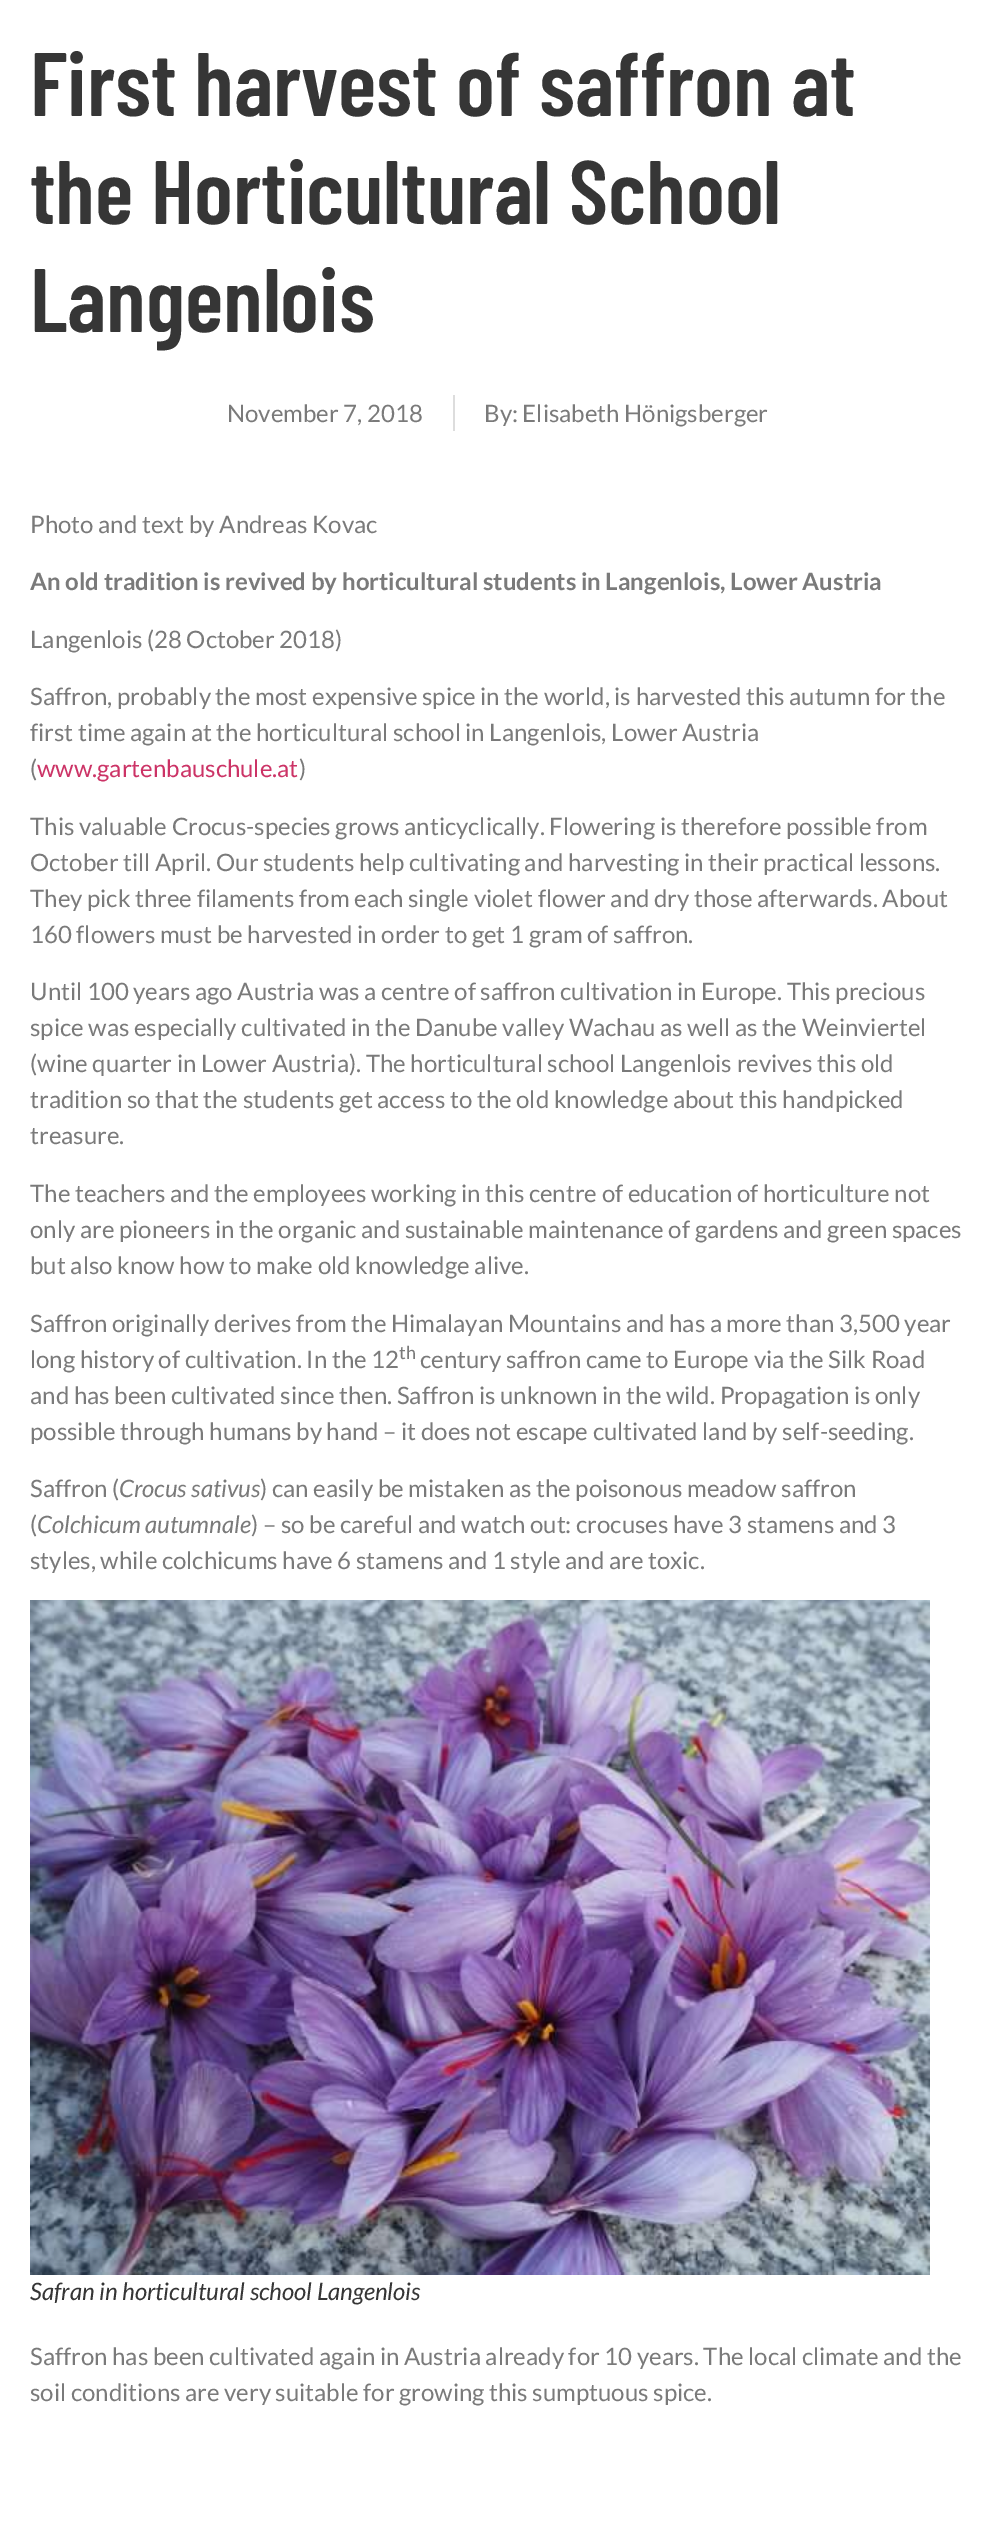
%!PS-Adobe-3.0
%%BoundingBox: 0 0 994 2536
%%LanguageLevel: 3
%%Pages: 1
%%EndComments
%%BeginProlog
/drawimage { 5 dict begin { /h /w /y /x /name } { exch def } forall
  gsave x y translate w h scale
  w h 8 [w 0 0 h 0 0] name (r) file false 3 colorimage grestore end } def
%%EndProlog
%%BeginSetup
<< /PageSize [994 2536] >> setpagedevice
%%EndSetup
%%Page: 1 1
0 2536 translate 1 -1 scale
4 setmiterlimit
1 setgray
0 0 994 2536 rectfill
0.867 setgray
453 395 2 36 rectfill
(images/1.raw) 30 1600 900 675 drawimage
/BarlowCondensed-SemiBold [90 0 0 -90 0 0] selectfont
0.212 setgray
30 116 moveto (First harvest of saffron at) show
30 224 moveto (the Horticultural School) show
30 332 moveto (Langenlois) show
/Lato-Regular [24 0 0 -24 0 0] selectfont
0.478 setgray
227 422 moveto (November 7, 2018) show
484 422 moveto (By: Elisabeth Hönigsberger) show
30 533 moveto (Photo and text by Andreas Kovac) show
/Lato-Bold [24 0 0 -24 0 0] selectfont
30 590 moveto (An old tradition is revived by horticultural students in Langenlois, Lower Austria) show
/Lato-Regular [24 0 0 -24 0 0] selectfont
30 648 moveto (Langenlois \(28 October 2018\)) show
30 705 moveto (Saffron, probably the most expensive spice in the world, is harvested this autumn for the) show
30 741 moveto (first time again at the horticultural school in Langenlois, Lower Austria) show
30 777 moveto (\() show
0.8 0.2 0.4 setrgbcolor
37 777 moveto (www.gartenbauschule.at) show
0.478 setgray
299 777 moveto (\)) show
30 835 moveto (This valuable Crocus-species grows anticyclically. Flowering is therefore possible from) show
30 871 moveto (October till April. Our students help cultivating and harvesting in their practical lessons.) show
30 907 moveto (They pick three filaments from each single violet flower and dry those afterwards. About) show
30 943 moveto (160 flowers must be harvested in order to get 1 gram of saffron.) show
30 1000 moveto (Until 100 years ago Austria was a centre of saffron cultivation in Europe. This precious) show
30 1036 moveto (spice was especially cultivated in the Danube valley Wachau as well as the Weinviertel) show
30 1072 moveto (\(wine quarter in Lower Austria\). The horticultural school Langenlois revives this old) show
30 1108 moveto (tradition so that the students get access to the old knowledge about this handpicked) show
30 1144 moveto (treasure.) show
30 1202 moveto (The teachers and the employees working in this centre of education of horticulture not) show
30 1238 moveto (only are pioneers in the organic and sustainable maintenance of gardens and green spaces) show
30 1274 moveto (but also know how to make old knowledge alive.) show
30 1332 moveto (Saffron originally derives from the Himalayan Mountains and has a more than 3,500 year) show
30 1368 moveto (long history of cultivation. In the 12) show
/Lato-Regular [18 0 0 -18 0 0] selectfont
399 1359 moveto (th) show
/Lato-Regular [24 0 0 -24 0 0] selectfont
420 1368 moveto (century saffron came to Europe via the Silk Road) show
30 1404 moveto (and has been cultivated since then. Saffron is unknown in the wild. Propagation is only) show
30 1440 moveto (possible through humans by hand – it does not escape cultivated land by self-seeding.) show
30 1497 moveto (Saffron \() show
/Lato-Italic [24 0 0 -24 0 0] selectfont
119 1497 moveto (Crocus sativus) show
/Lato-Regular [24 0 0 -24 0 0] selectfont
260 1497 moveto (\) can easily be mistaken as the poisonous meadow saffron) show
30 1533 moveto (\() show
/Lato-Italic [24 0 0 -24 0 0] selectfont
37 1533 moveto (Colchicum autumnale) show
/Lato-Regular [24 0 0 -24 0 0] selectfont
251 1533 moveto (\) – so be careful and watch out: crocuses have 3 stamens and 3) show
30 1569 moveto (styles, while colchicums have 6 stamens and 1 style and are toxic.) show
/Lato-Italic [24 0 0 -24 0 0] selectfont
0.212 setgray
30 2300 moveto (Safran in horticultural school Langenlois) show
/Lato-Regular [24 0 0 -24 0 0] selectfont
0.478 setgray
30 2365 moveto (Saffron has been cultivated again in Austria already for 10 years. The local climate and the) show
30 2401 moveto (soil conditions are very suitable for growing this sumptuous spice.) show
showpage
%%EOF
